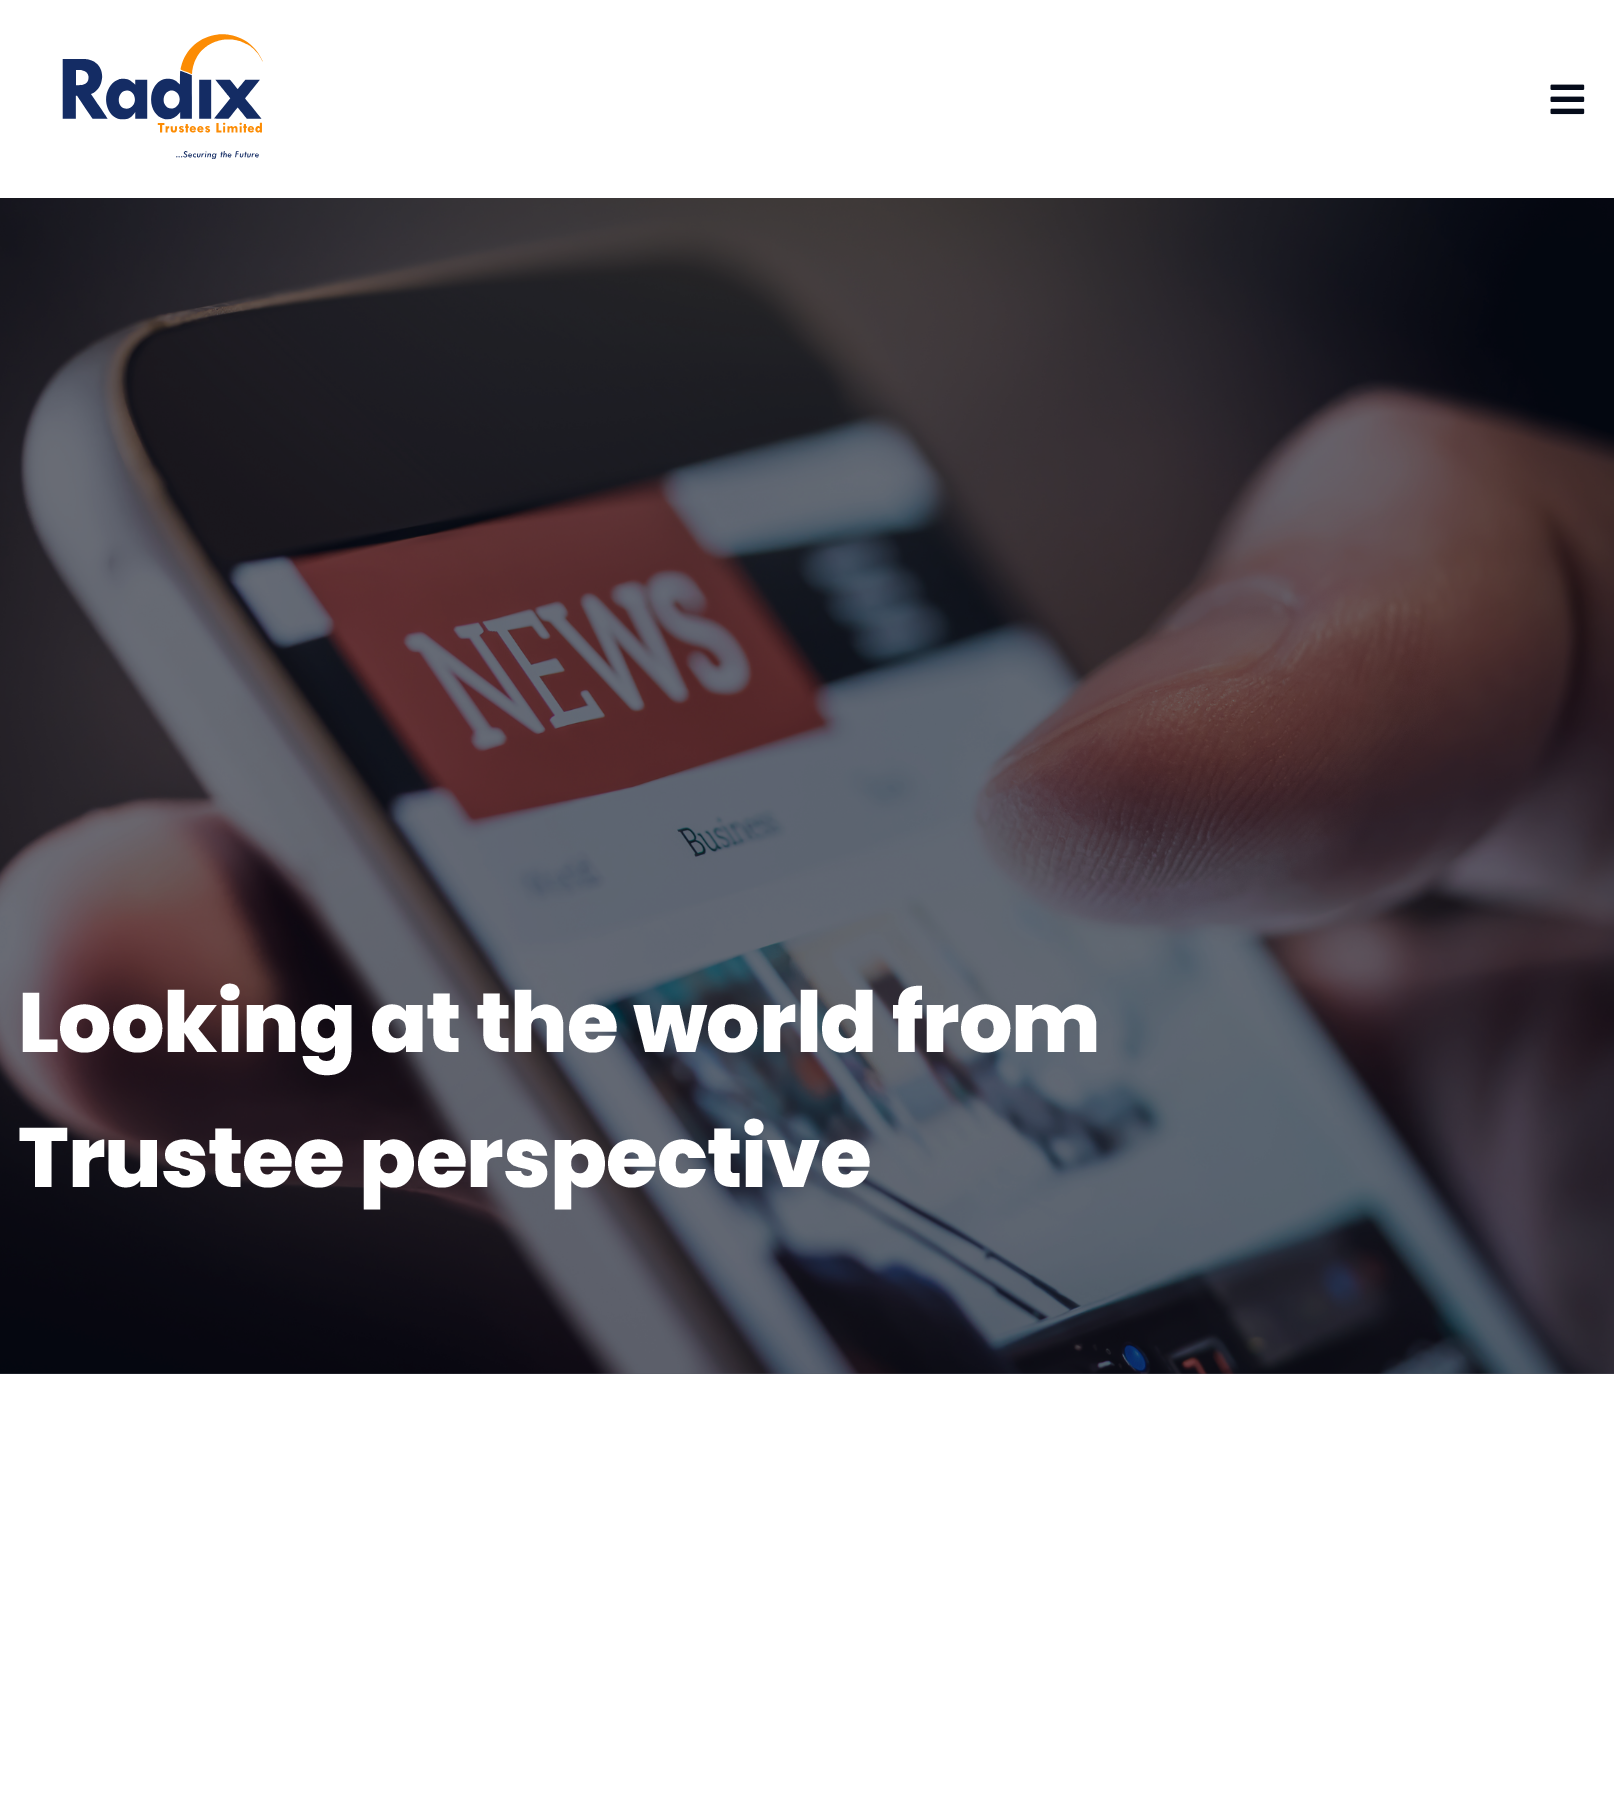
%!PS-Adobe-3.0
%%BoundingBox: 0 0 1614 1812
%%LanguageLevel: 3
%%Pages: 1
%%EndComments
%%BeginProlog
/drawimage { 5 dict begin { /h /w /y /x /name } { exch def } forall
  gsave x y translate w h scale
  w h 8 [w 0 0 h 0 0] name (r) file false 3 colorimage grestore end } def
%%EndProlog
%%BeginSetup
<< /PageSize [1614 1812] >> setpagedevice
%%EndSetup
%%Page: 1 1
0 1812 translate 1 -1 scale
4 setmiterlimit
1 setgray
0 0 1614 1812 rectfill
(images/1.raw) 62 34 201 125 drawimage
(images/2.raw) 1550 84 35 31 drawimage
(images/3.raw) 0 198 1614 1176 drawimage
/Poppins-ExtraBold [84 0 0 -84 0 0] selectfont
18 1052 moveto -0.9 0 (Looking at the world from) ashow
18 1187 moveto -0.9 0 (Trustee perspective) ashow
showpage
%%EOF
